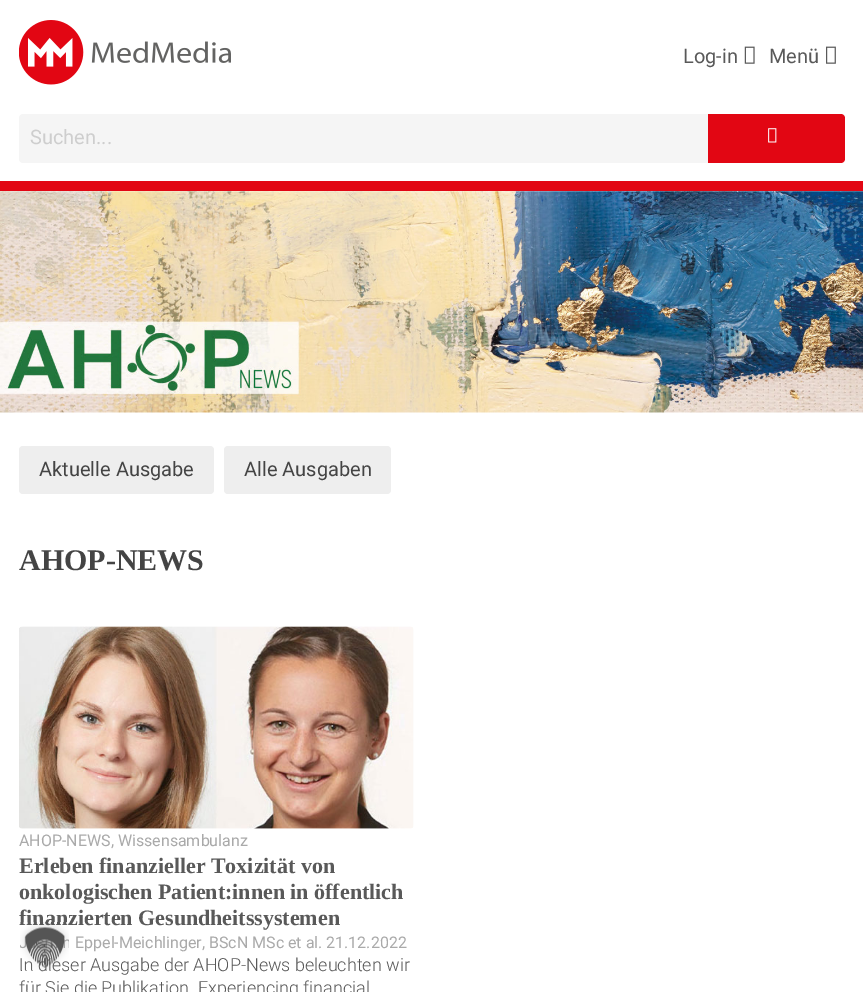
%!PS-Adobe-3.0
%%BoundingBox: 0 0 863 992
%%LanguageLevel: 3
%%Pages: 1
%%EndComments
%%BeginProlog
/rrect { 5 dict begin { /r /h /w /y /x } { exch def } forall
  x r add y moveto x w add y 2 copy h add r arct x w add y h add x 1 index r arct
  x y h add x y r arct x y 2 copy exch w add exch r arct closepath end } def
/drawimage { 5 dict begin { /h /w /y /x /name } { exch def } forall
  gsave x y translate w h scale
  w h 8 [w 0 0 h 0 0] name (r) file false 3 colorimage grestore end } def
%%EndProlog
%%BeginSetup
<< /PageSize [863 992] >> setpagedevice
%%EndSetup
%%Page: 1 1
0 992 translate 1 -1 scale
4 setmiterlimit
1 setgray
0 0 863 992 rectfill
0.886 0.024 0.075 setrgbcolor
0 181 863 10 rectfill
(images/1.raw) 19 20 212 65 drawimage
(images/2.raw) 744 46 11 18 drawimage
(images/3.raw) 826 46 10 18 drawimage
0.961 setgray
newpath 23 114 moveto 708 114 lineto 708 163 lineto 23 163 lineto 21 163 19 161 19 159 curveto 19 118 lineto 19 116 21 114 23 114 curveto closepath fill
0.886 0.024 0.075 setrgbcolor
newpath 708 114 moveto 841 114 lineto 843 114 845 116 845 118 curveto 845 159 lineto 845 161 843 163 841 163 curveto 708 163 lineto closepath fill
(images/4.raw) 768 128 9 15 drawimage
(images/5.raw) 0 191 863 222 drawimage
0.933 setgray
19 446 195 48 4 rrect fill
224 446 167 48 4 rrect fill
(images/6.raw) 19 626 395 203 drawimage
/Roboto-Regular [20 0 0 -20 0 0] selectfont
0.349 setgray
683 63 moveto (Log-in) show
769 63 moveto (Menü) show
0.808 setgray
30 144 moveto (Suchen...) show
0.267 setgray
39 476 moveto (Aktuelle Ausgabe) show
244 476 moveto (Alle Ausgaben) show
/LiberationSerif-Bold [30 0 0 -30 0 0] selectfont
19 570 moveto (AHOP-NEWS) show
/Roboto-Regular [16 0 0 -16 0 0] selectfont
0.667 setgray
19 846 moveto (AHOP-NEWS, Wissensambulanz) show
/LiberationSerif-Bold [22 0 0 -22 0 0] selectfont
0.349 setgray
19 873 moveto (Erleben finanzieller Toxizität von) show
19 899 moveto (onkologischen Patient:innen in öffentlich) show
19 925 moveto (finanzierten Gesundheitssystemen) show
/Roboto-Regular [16 0 0 -16 0 0] selectfont
0.667 setgray
75 948 moveto (Eppel-Meichlinger, BScN MSc et al. 21.12.2022) show
/Roboto-Light [18 0 0 -18 0 0] selectfont
0.349 setgray
19 971 moveto (In dieser Ausgabe der AHOP-News beleuchten wir) show
19 994 moveto (für Sie die Publikation „Experiencing financial) show
(images/7.raw) 20 922 49 48 drawimage
showpage
%%EOF
